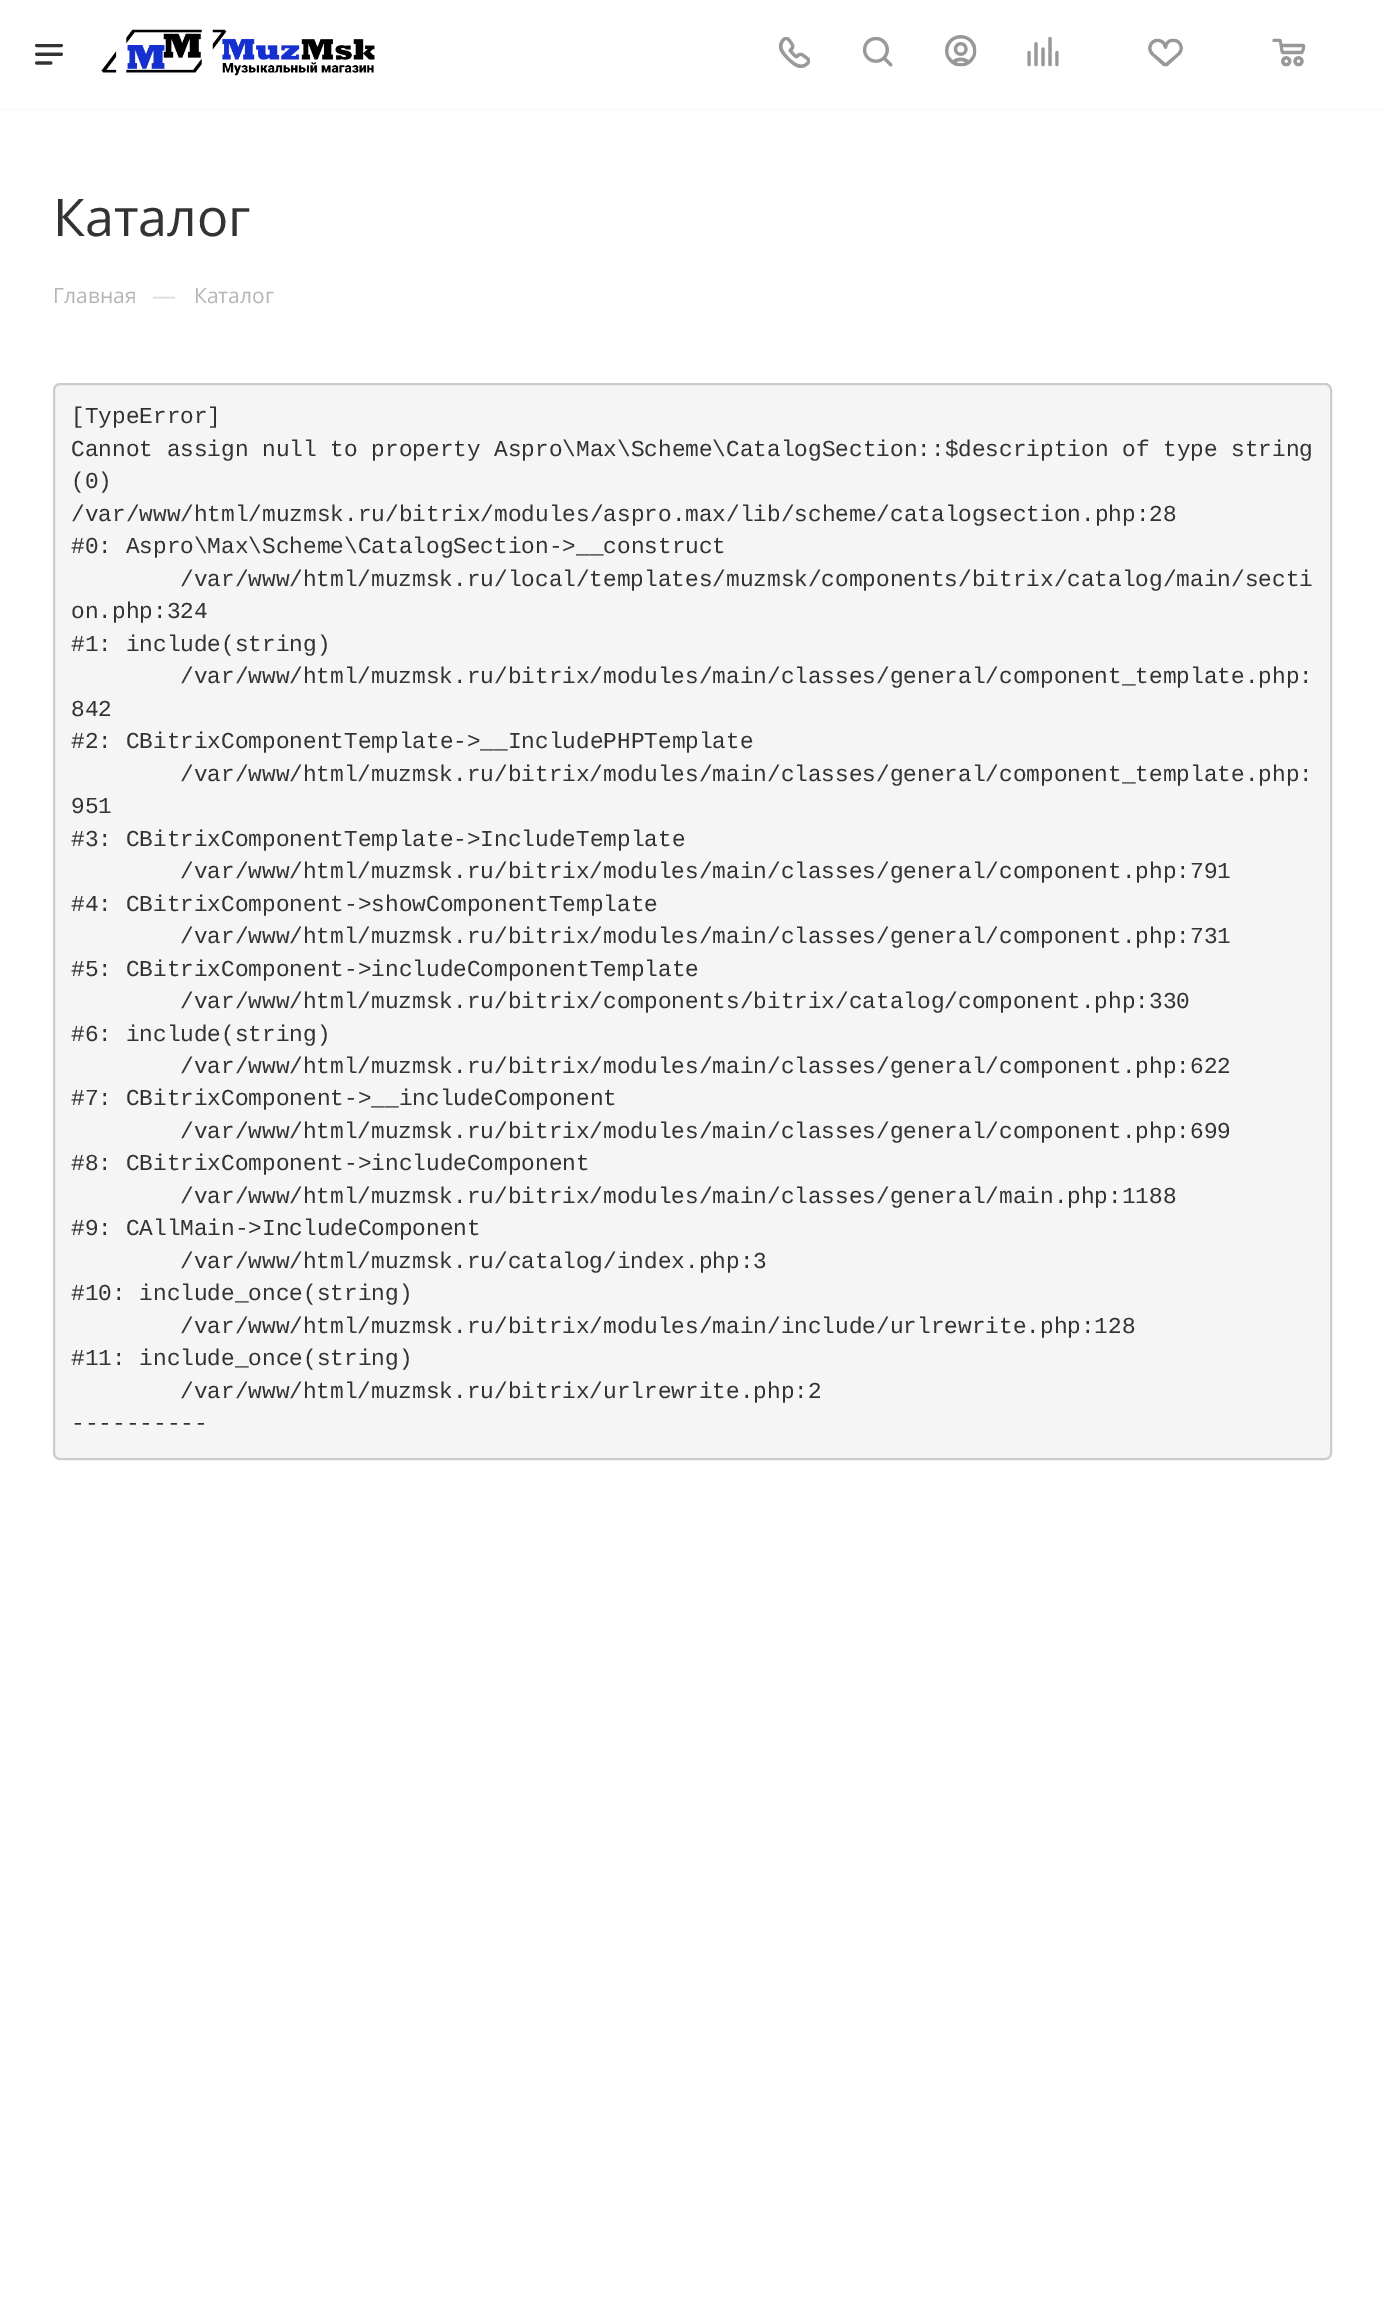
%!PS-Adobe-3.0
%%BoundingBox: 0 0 1384 2323
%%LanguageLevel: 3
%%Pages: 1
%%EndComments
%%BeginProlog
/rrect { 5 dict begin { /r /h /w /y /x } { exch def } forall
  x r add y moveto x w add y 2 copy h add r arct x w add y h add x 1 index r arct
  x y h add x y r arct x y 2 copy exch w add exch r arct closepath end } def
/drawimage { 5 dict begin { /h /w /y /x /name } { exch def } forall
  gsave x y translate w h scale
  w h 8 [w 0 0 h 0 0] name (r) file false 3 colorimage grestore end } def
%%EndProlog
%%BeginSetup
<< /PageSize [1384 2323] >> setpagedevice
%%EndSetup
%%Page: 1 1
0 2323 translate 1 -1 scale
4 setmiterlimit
1 setgray
0 0 1384 2323 rectfill
0.973 setgray
0 109 1384 1 rectfill
(images/1.raw) 35 44 28 21 drawimage
(images/2.raw) 101 29 274 47 drawimage
(images/3.raw) 779 37 31 31 drawimage
(images/4.raw) 863 37 30 30 drawimage
(images/5.raw) 945 35 32 32 drawimage
(images/6.raw) 1027 37 32 30 drawimage
(images/7.raw) 1148 38 35 29 drawimage
(images/8.raw) 1272 38 34 29 drawimage
0.961 setgray
54 384 1277 1075 6 rrect gsave fill grestore
0.8 setgray
2 setlinewidth
stroke
/OpenSans-Regular [52 0 0 -52 0 0] selectfont
0.2 setgray
53 236 moveto (Каталог) show
/OpenSans-Regular [21 0 0 -21 0 0] selectfont
0.714 0.71 0.71 setrgbcolor
53 303 moveto (Главная) show
/OpenSans-Regular [24 0 0 -24 0 0] selectfont
0.867 setgray
152 304 moveto (—) show
/OpenSans-Regular [21 0 0 -21 0 0] selectfont
0.714 0.71 0.71 setrgbcolor
194 303 moveto (Каталог) show
/LiberationMono-Regular [22.75 0 0 -22.75 0 0] selectfont
0.2 setgray
71 423 moveto ([TypeError]) show
71 456 moveto (Cannot assign null to property Aspro\\Max\\Scheme\\CatalogSection::$description of type string) show
71 488 moveto (\(0\)) show
71 521 moveto (/var/www/html/muzmsk.ru/bitrix/modules/aspro.max/lib/scheme/catalogsection.php:28) show
71 553 moveto (#0: Aspro\\Max\\Scheme\\CatalogSection->__construct) show
180 586 moveto (/var/www/html/muzmsk.ru/local/templates/muzmsk/components/bitrix/catalog/main/secti) show
71 618 moveto (on.php:324) show
71 651 moveto (#1: include\(string\)) show
180 683 moveto (/var/www/html/muzmsk.ru/bitrix/modules/main/classes/general/component_template.php:) show
71 716 moveto (842) show
71 748 moveto (#2: CBitrixComponentTemplate->__IncludePHPTemplate) show
180 781 moveto (/var/www/html/muzmsk.ru/bitrix/modules/main/classes/general/component_template.php:) show
71 813 moveto (951) show
71 846 moveto (#3: CBitrixComponentTemplate->IncludeTemplate) show
180 878 moveto (/var/www/html/muzmsk.ru/bitrix/modules/main/classes/general/component.php:791) show
71 911 moveto (#4: CBitrixComponent->showComponentTemplate) show
180 943 moveto (/var/www/html/muzmsk.ru/bitrix/modules/main/classes/general/component.php:731) show
71 976 moveto (#5: CBitrixComponent->includeComponentTemplate) show
180 1008 moveto (/var/www/html/muzmsk.ru/bitrix/components/bitrix/catalog/component.php:330) show
71 1041 moveto (#6: include\(string\)) show
180 1073 moveto (/var/www/html/muzmsk.ru/bitrix/modules/main/classes/general/component.php:622) show
71 1105 moveto (#7: CBitrixComponent->__includeComponent) show
180 1138 moveto (/var/www/html/muzmsk.ru/bitrix/modules/main/classes/general/component.php:699) show
71 1170 moveto (#8: CBitrixComponent->includeComponent) show
180 1203 moveto (/var/www/html/muzmsk.ru/bitrix/modules/main/classes/general/main.php:1188) show
71 1235 moveto (#9: CAllMain->IncludeComponent) show
180 1268 moveto (/var/www/html/muzmsk.ru/catalog/index.php:3) show
71 1300 moveto (#10: include_once\(string\)) show
180 1333 moveto (/var/www/html/muzmsk.ru/bitrix/modules/main/include/urlrewrite.php:128) show
71 1365 moveto (#11: include_once\(string\)) show
180 1398 moveto (/var/www/html/muzmsk.ru/bitrix/urlrewrite.php:2) show
71 1430 moveto (----------) show
showpage
%%EOF
